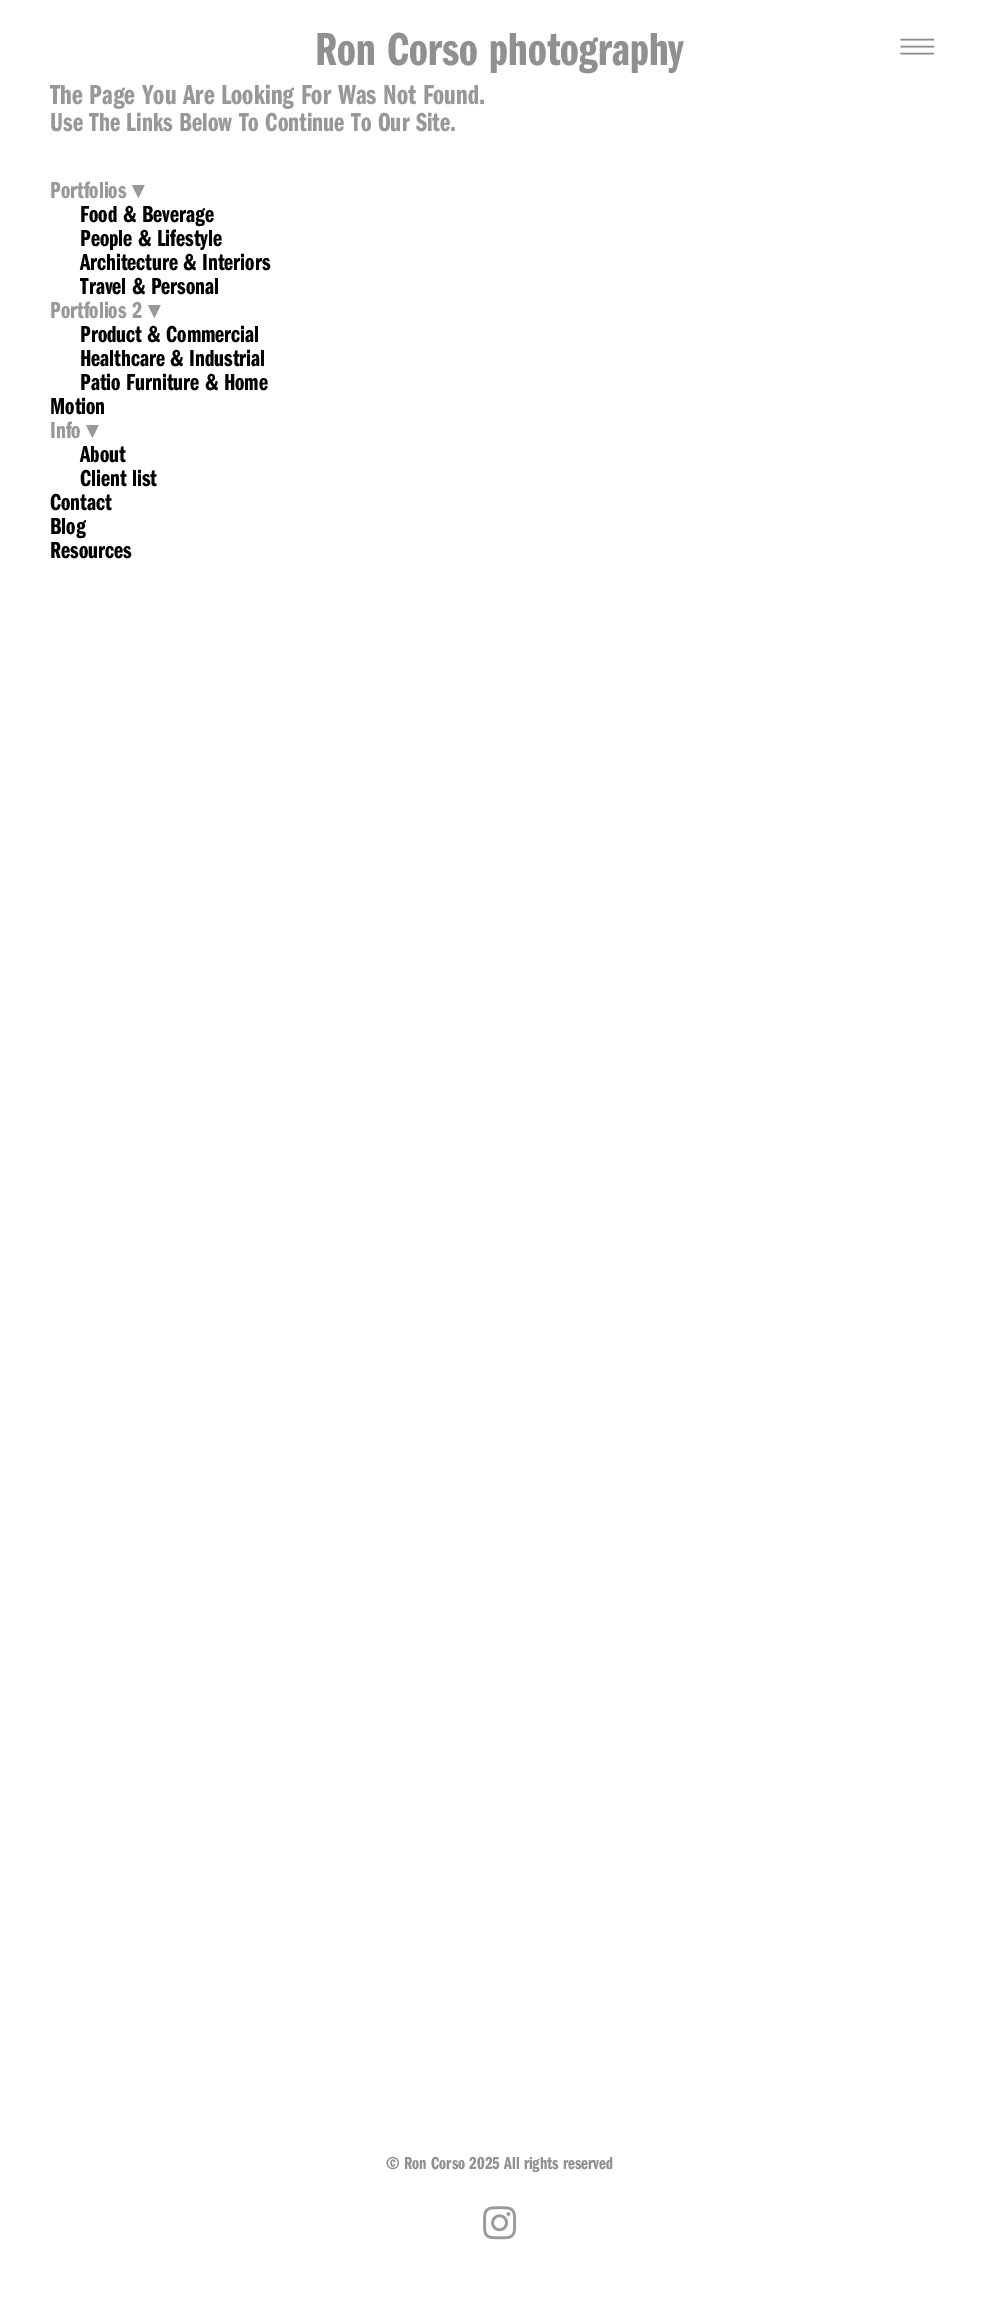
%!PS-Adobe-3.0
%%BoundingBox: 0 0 999 2304
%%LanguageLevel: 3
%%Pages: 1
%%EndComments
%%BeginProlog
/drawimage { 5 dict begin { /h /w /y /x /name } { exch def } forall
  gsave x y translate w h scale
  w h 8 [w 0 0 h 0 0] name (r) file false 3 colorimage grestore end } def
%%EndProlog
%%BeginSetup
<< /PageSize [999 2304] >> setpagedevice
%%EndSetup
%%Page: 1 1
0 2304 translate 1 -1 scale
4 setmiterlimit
1 setgray
0 0 999 2304 rectfill
0.545 setgray
1.6 setlinewidth
2 setlinecap
newpath 901.5 39.5 moveto 933 39.5 lineto 901.5 46.5 moveto 933 46.5 lineto 901.5 53.5 moveto 933 53.5 lineto stroke
(images/1.raw) 483 2206 34 34 drawimage
/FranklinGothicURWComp-SemiBold [48 0 0 -48 0 0] selectfont
0.565 setgray
315 65 moveto (Ron Corso photography) show
/FranklinGothicURWComp-SemiBold [28.5 0 0 -28.5 0 0] selectfont
0.6 0.596 0.596 setrgbcolor
50 104 moveto (The Page You Are Looking For Was Not Found.) show
/FranklinGothicURWComp-SemiBold [27 0 0 -27 0 0] selectfont
50 131 moveto (Use The Links Below To Continue To Our Site.) show
/FranklinGothicURWComp-SemiBold [24 0 0 -24 0 0] selectfont
50 198 moveto (Portfolios) show
/DejaVuSans-Bold [24 0 0 -24 0 0] selectfont
132 198 moveto (▾) show
/FranklinGothicURWComp-SemiBold [24 0 0 -24 0 0] selectfont
0 setgray
80 222 moveto (Food & Beverage) show
80 246 moveto (People & Lifestyle) show
80 270 moveto (Architecture & Interiors) show
80 294 moveto (Travel & Personal) show
0.6 0.596 0.596 setrgbcolor
50 318 moveto (Portfolios 2) show
/DejaVuSans-Bold [24 0 0 -24 0 0] selectfont
148 318 moveto (▾) show
/FranklinGothicURWComp-SemiBold [24 0 0 -24 0 0] selectfont
0 setgray
80 342 moveto (Product & Commercial) show
80 366 moveto (Healthcare & Industrial) show
80 390 moveto (Patio Furniture & Home) show
50 414 moveto (Motion) show
0.6 0.596 0.596 setrgbcolor
50 438 moveto (Info) show
/DejaVuSans-Bold [24 0 0 -24 0 0] selectfont
86 438 moveto (▾) show
/FranklinGothicURWComp-SemiBold [24 0 0 -24 0 0] selectfont
0 setgray
80 462 moveto (About) show
80 486 moveto (Client list) show
50 510 moveto (Contact) show
50 534 moveto (Blog) show
50 558 moveto (Resources) show
/FranklinGothicURWComp-SemiBold [18 0 0 -18 0 0] selectfont
0.565 setgray
386 2169 moveto (© Ron Corso 2025 All rights reserved) show
showpage
%%EOF
